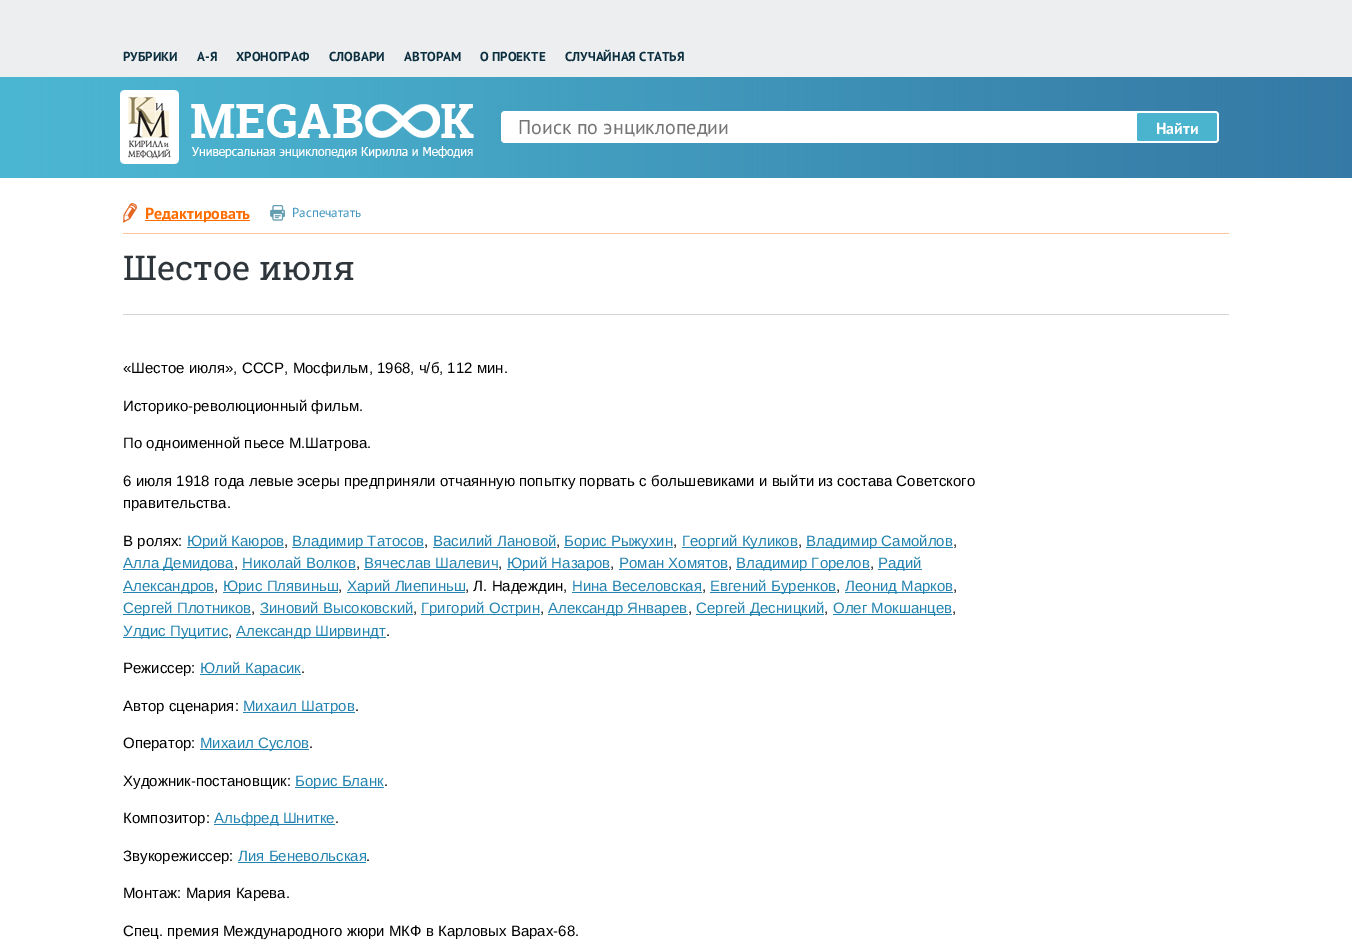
%!PS-Adobe-3.0
%%BoundingBox: 0 0 1352 949
%%LanguageLevel: 3
%%Pages: 1
%%EndComments
%%BeginProlog
/rrect { 5 dict begin { /r /h /w /y /x } { exch def } forall
  x r add y moveto x w add y 2 copy h add r arct x w add y h add x 1 index r arct
  x y h add x y r arct x y 2 copy exch w add exch r arct closepath end } def
/drawimage { 5 dict begin { /h /w /y /x /name } { exch def } forall
  gsave x y translate w h scale
  w h 8 [w 0 0 h 0 0] name (r) file false 3 colorimage grestore end } def
%%EndProlog
%%BeginSetup
<< /PageSize [1352 949] >> setpagedevice
%%EndSetup
%%Page: 1 1
0 949 translate 1 -1 scale
4 setmiterlimit
1 setgray
0 0 1352 949 rectfill
0.925 0.933 0.937 setrgbcolor
0 0 1352 77 rectfill
(images/1.raw) 0 77 1352 101 drawimage
(images/2.raw) 120 90 354 74 drawimage
1 setgray
501 111 718 32 4 rrect fill
0.29 0.706 0.812 setrgbcolor
1137 113 80 28 2 rrect fill
(images/3.raw) 123 203 14 20 drawimage
1 0.424 0 setrgbcolor
145 220 105 1 rectfill
(images/4.raw) 270 205 15 16 drawimage
1 0.773 0.604 setrgbcolor
123 233 1106 1 rectfill
0.835 setgray
123 314 1106 1 rectfill
0.141 0.518 0.694 setrgbcolor
187 547 97 1 rectfill
292 547 132 1 rectfill
433 547 123 1 rectfill
564 547 109 1 rectfill
682 547 116 1 rectfill
806 547 147 1 rectfill
123 569 111 1 rectfill
242 569 114 1 rectfill
364 569 134 1 rectfill
507 569 103 1 rectfill
619 569 109 1 rectfill
736 569 134 1 rectfill
878 569 44 1 rectfill
123 592 91 1 rectfill
223 592 115 1 rectfill
347 592 118 1 rectfill
572 592 130 1 rectfill
710 592 126 1 rectfill
845 592 108 1 rectfill
123 614 128 1 rectfill
260 614 153 1 rectfill
421 614 119 1 rectfill
548 614 140 1 rectfill
696 614 128 1 rectfill
833 614 119 1 rectfill
123 637 105 1 rectfill
236 637 150 1 rectfill
200 674 101 1 rectfill
243 712 112 1 rectfill
200 749 109 1 rectfill
295 787 89 1 rectfill
214 824 121 1 rectfill
238 862 128 1 rectfill
/PTSans-Bold [13 0 0 -13 0 0] selectfont
0.047 0.184 0.251 setrgbcolor
123 61 moveto (РУБРИКИ) show
197 61 moveto (А-Я) show
236 61 moveto (ХРОНОГРАФ) show
329 61 moveto (СЛОВАРИ) show
404 61 moveto (АВТОРАМ) show
480 61 moveto (О ПРОЕКТЕ) show
565 61 moveto (СЛУЧАЙНАЯ СТАТЬЯ) show
/PTSans-Regular [20 0 0 -20 0 0] selectfont
0.459 setgray
518 134 moveto (Поиск по энциклопедии) show
/PTSans-Bold [16 0 0 -16 0 0] selectfont
1 setgray
1156 134 moveto (Найти) show
1 0.424 0 setrgbcolor
145 219 moveto (Редактировать) show
/PTSans-Regular [13 0 0 -13 0 0] selectfont
0.259 0.592 0.749 setrgbcolor
292 217 moveto (Распечатать) show
/RobotoSlab-Regular [34 0 0 -34 0 0] selectfont
0.18 0.212 0.231 setrgbcolor
123 280 moveto (Шестое июля) show
/LiberationSans-Regular [15 0 0 -15 0 0] selectfont
0 setgray
123 373 moveto («Шестое июля», СССР, Мосфильм, 1968, ч/б, 112 мин.) show
123 411 moveto (Историко-революционный фильм.) show
123 448 moveto (По одноименной пьесе М.Шатрова.) show
123 486 moveto (6 июля 1918 года левые эсеры предприняли отчаянную попытку порвать с большевиками и выйти из состава Советского) show
123 508 moveto (правительства.) show
123 546 moveto (В ролях:) show
0.141 0.518 0.694 setrgbcolor
187 546 moveto (Юрий Каюров) show
0 setgray
284 546 moveto (,) show
0.141 0.518 0.694 setrgbcolor
292 546 moveto (Владимир Татосов) show
0 setgray
424 546 moveto (,) show
0.141 0.518 0.694 setrgbcolor
433 546 moveto (Василий Лановой) show
0 setgray
556 546 moveto (,) show
0.141 0.518 0.694 setrgbcolor
564 546 moveto (Борис Рыжухин) show
0 setgray
673 546 moveto (,) show
0.141 0.518 0.694 setrgbcolor
682 546 moveto (Георгий Куликов) show
0 setgray
798 546 moveto (,) show
0.141 0.518 0.694 setrgbcolor
806 546 moveto (Владимир Самойлов) show
0 setgray
953 546 moveto (,) show
0.141 0.518 0.694 setrgbcolor
123 568 moveto (Алла Демидова) show
0 setgray
234 568 moveto (,) show
0.141 0.518 0.694 setrgbcolor
242 568 moveto (Николай Волков) show
0 setgray
356 568 moveto (,) show
0.141 0.518 0.694 setrgbcolor
364 568 moveto (Вячеслав Шалевич) show
0 setgray
498 568 moveto (,) show
0.141 0.518 0.694 setrgbcolor
507 568 moveto (Юрий Назаров) show
0 setgray
610 568 moveto (,) show
0.141 0.518 0.694 setrgbcolor
619 568 moveto (Роман Хомятов) show
0 setgray
728 568 moveto (,) show
0.141 0.518 0.694 setrgbcolor
736 568 moveto (Владимир Горелов) show
0 setgray
870 568 moveto (,) show
0.141 0.518 0.694 setrgbcolor
878 568 moveto (Радий) show
123 591 moveto (Александров) show
0 setgray
214 591 moveto (,) show
0.141 0.518 0.694 setrgbcolor
223 591 moveto (Юрис Плявиньш) show
0 setgray
338 591 moveto (,) show
0.141 0.518 0.694 setrgbcolor
347 591 moveto (Харий Лиепиньш) show
0 setgray
465 591 moveto (, Л. Надеждин,) show
0.141 0.518 0.694 setrgbcolor
572 591 moveto (Нина Веселовская) show
0 setgray
702 591 moveto (,) show
0.141 0.518 0.694 setrgbcolor
710 591 moveto (Евгений Буренков) show
0 setgray
836 591 moveto (,) show
0.141 0.518 0.694 setrgbcolor
845 591 moveto (Леонид Марков) show
0 setgray
953 591 moveto (,) show
0.141 0.518 0.694 setrgbcolor
123 613 moveto (Сергей Плотников) show
0 setgray
251 613 moveto (,) show
0.141 0.518 0.694 setrgbcolor
260 613 moveto (Зиновий Высоковский) show
0 setgray
413 613 moveto (,) show
0.141 0.518 0.694 setrgbcolor
421 613 moveto (Григорий Острин) show
0 setgray
540 613 moveto (,) show
0.141 0.518 0.694 setrgbcolor
548 613 moveto (Александр Январев) show
0 setgray
688 613 moveto (,) show
0.141 0.518 0.694 setrgbcolor
696 613 moveto (Сергей Десницкий) show
0 setgray
824 613 moveto (,) show
0.141 0.518 0.694 setrgbcolor
833 613 moveto (Олег Мокшанцев) show
0 setgray
952 613 moveto (,) show
0.141 0.518 0.694 setrgbcolor
123 636 moveto (Улдис Пуцитис) show
0 setgray
228 636 moveto (,) show
0.141 0.518 0.694 setrgbcolor
236 636 moveto (Александр Ширвиндт) show
0 setgray
386 636 moveto (.) show
123 673 moveto (Режиссер:) show
0.141 0.518 0.694 setrgbcolor
200 673 moveto (Юлий Карасик) show
0 setgray
301 673 moveto (.) show
123 711 moveto (Автор сценария:) show
0.141 0.518 0.694 setrgbcolor
243 711 moveto (Михаил Шатров) show
0 setgray
355 711 moveto (.) show
123 748 moveto (Оператор:) show
0.141 0.518 0.694 setrgbcolor
200 748 moveto (Михаил Суслов) show
0 setgray
309 748 moveto (.) show
123 786 moveto (Художник-постановщик:) show
0.141 0.518 0.694 setrgbcolor
295 786 moveto (Борис Бланк) show
0 setgray
384 786 moveto (.) show
123 823 moveto (Композитор:) show
0.141 0.518 0.694 setrgbcolor
214 823 moveto (Альфред Шнитке) show
0 setgray
335 823 moveto (.) show
123 861 moveto (Звукорежиссер:) show
0.141 0.518 0.694 setrgbcolor
238 861 moveto (Лия Беневольская) show
0 setgray
366 861 moveto (.) show
123 898 moveto (Монтаж: Мария Карева.) show
123 936 moveto (Спец. премия Международного жюри МКФ в Карловых Варах-68.) show
showpage
%%EOF
